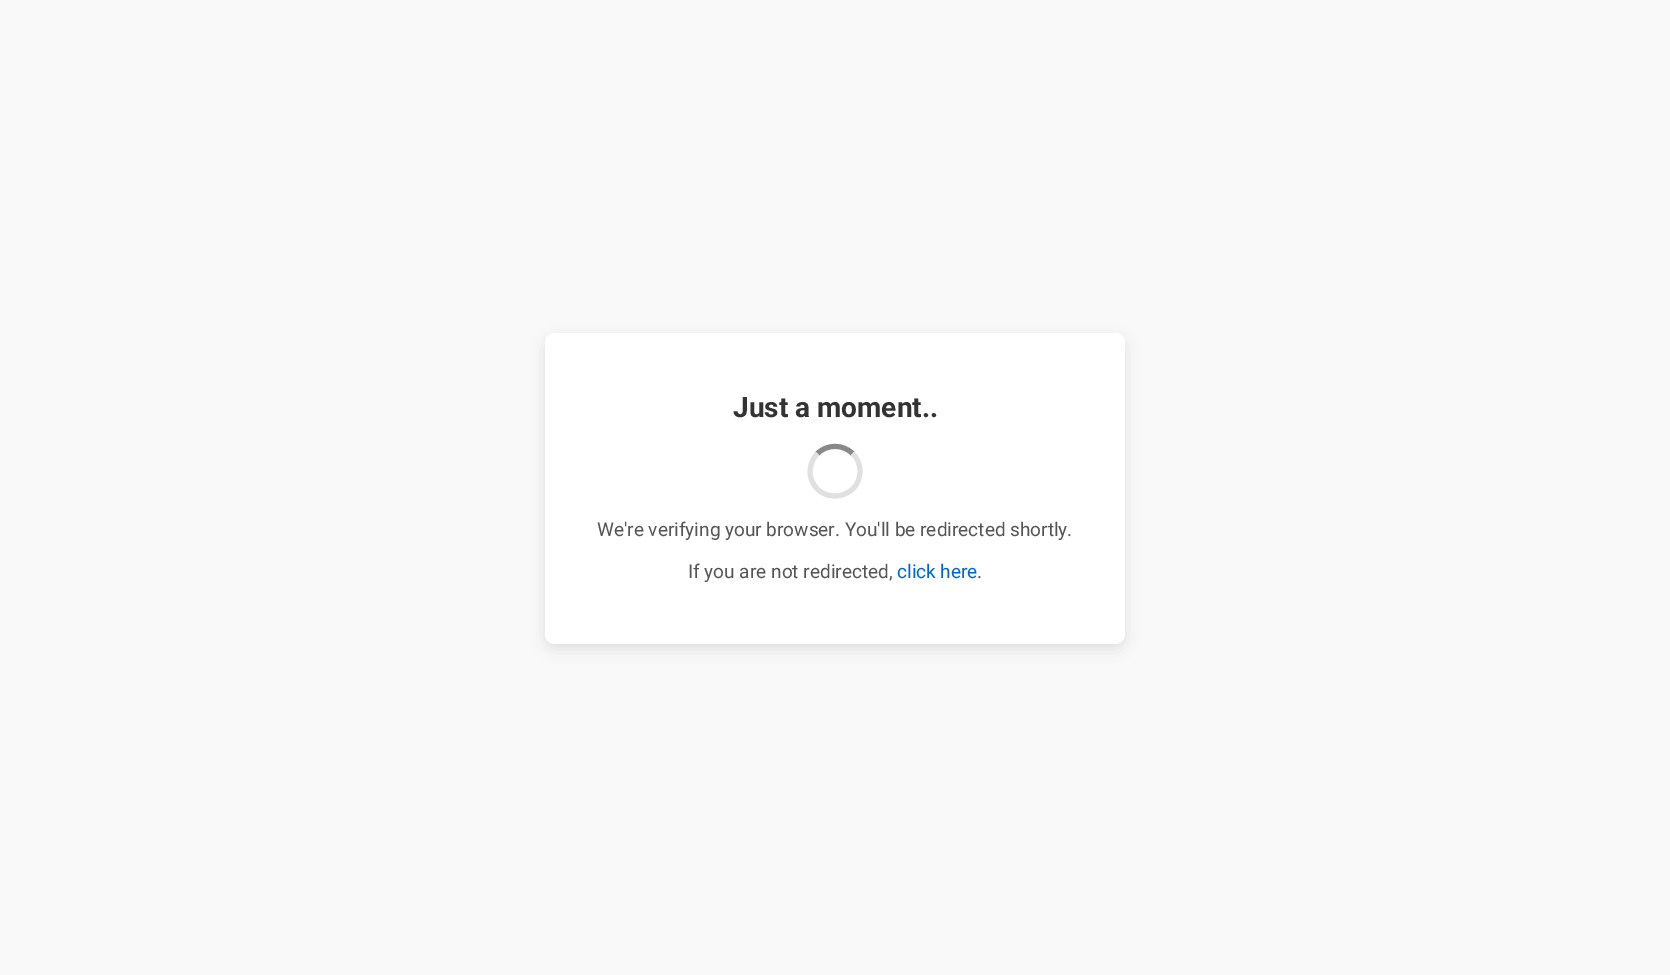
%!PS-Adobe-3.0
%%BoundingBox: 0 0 1670 975
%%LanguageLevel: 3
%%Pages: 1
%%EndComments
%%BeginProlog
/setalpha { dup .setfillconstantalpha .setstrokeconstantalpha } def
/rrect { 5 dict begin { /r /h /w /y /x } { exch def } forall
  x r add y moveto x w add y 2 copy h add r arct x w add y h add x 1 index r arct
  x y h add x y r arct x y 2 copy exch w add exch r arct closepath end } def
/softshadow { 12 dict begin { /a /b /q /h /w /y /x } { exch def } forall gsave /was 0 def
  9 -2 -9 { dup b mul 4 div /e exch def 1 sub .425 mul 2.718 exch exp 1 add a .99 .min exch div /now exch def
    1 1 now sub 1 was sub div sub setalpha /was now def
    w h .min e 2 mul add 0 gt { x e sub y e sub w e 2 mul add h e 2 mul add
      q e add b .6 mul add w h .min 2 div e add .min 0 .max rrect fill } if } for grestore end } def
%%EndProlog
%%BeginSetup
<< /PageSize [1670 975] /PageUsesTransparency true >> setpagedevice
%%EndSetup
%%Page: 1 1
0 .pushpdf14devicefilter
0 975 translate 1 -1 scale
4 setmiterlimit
0.976 setgray
0 0 1670 975 rectfill
0 setgray
545 338 580 311 10 7.5 0.1 softshadow
1 setgray
545 333 580 311 10 rrect fill
0.533 setgray
5 setlinewidth
newpath 817.5 453.5 moveto 827 444 843 444 852.5 453.5 curveto stroke
0.878 setgray
newpath 852.5 453.5 moveto 857.5 458 860 464.5 860 471 curveto 860 501 816.5 505.5 810.5 476 curveto 809 468 811.5 459.5 817.5 453.5 curveto stroke
/Roboto-Bold [28 0 0 -28 0 0] selectfont
0.2 setgray
733 417 moveto (Just a moment..) show
/Roboto-Regular [19 0 0 -19 0 0] selectfont
0.333 setgray
597 536 moveto (We're verifying your browser. You'll be redirected shortly.) show
688 578 moveto (If you are not redirected,) show
0 0.4 0.8 setrgbcolor
897 578 moveto (click here) show
0.333 setgray
977 578 moveto (.) show
.poppdf14devicefilter showpage
%%EOF
